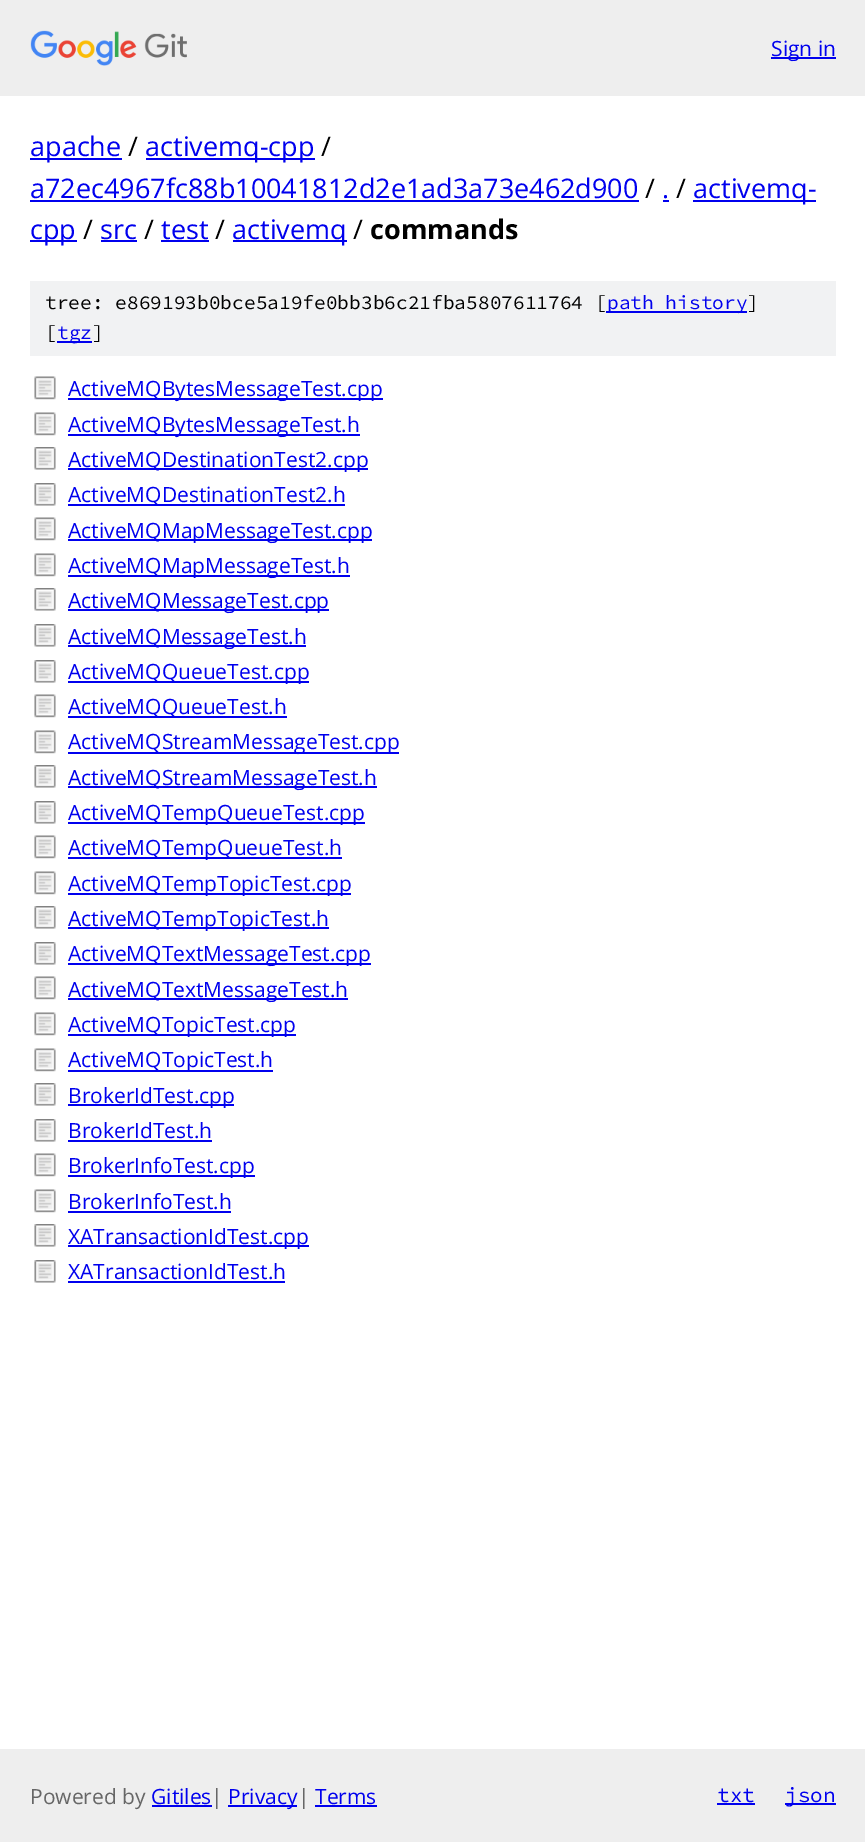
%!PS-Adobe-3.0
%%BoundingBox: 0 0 865 1842
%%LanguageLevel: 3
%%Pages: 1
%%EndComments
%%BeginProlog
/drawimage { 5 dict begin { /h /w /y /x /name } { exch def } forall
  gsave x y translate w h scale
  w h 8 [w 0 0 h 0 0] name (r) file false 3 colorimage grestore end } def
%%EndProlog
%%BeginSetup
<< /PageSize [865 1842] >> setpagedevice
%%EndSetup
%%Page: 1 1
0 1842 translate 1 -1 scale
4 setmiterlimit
1 setgray
0 0 865 1842 rectfill
0.933 setgray
0 0 865 96 rectfill
(images/1.raw) 30 30 157 36 drawimage
0 0 0.933 setrgbcolor
771 57 65 2 rectfill
30 158 92 2 rectfill
146 158 169 2 rectfill
30 200 609 2 rectfill
663 200 6 2 rectfill
693 200 123 2 rectfill
30 240 47 2 rectfill
101 240 36 2 rectfill
161 240 48 2 rectfill
233 240 114 2 rectfill
0.945 0.949 0.953 setrgbcolor
30 281 806 75 rectfill
0 0 0.933 setrgbcolor
606 311 141 2 rectfill
57 341 35 2 rectfill
(images/2.raw) 34 376 22 24 drawimage
68 398 315 2 rectfill
(images/2.raw) 34 412 22 24 drawimage
68 434 292 2 rectfill
(images/3.raw) 34 447 22 23 drawimage
68 468 300 2 rectfill
(images/3.raw) 34 483 22 23 drawimage
68 504 277 2 rectfill
(images/2.raw) 34 517 22 24 drawimage
68 539 304 2 rectfill
(images/2.raw) 34 553 22 24 drawimage
68 575 282 2 rectfill
(images/3.raw) 34 588 22 23 drawimage
68 609 261 2 rectfill
(images/3.raw) 34 624 22 23 drawimage
68 645 238 2 rectfill
(images/3.raw) 34 660 22 23 drawimage
68 681 241 2 rectfill
(images/2.raw) 34 694 22 24 drawimage
68 716 219 2 rectfill
(images/2.raw) 34 730 22 24 drawimage
68 752 331 2 rectfill
(images/3.raw) 34 765 22 23 drawimage
68 786 309 2 rectfill
(images/3.raw) 34 801 22 23 drawimage
68 822 297 2 rectfill
(images/2.raw) 34 835 22 24 drawimage
68 857 274 2 rectfill
(images/2.raw) 34 871 22 24 drawimage
68 893 283 2 rectfill
(images/3.raw) 34 906 22 23 drawimage
68 927 261 2 rectfill
(images/3.raw) 34 942 22 23 drawimage
68 963 303 2 rectfill
(images/2.raw) 34 976 22 24 drawimage
68 998 280 2 rectfill
(images/2.raw) 34 1012 22 24 drawimage
68 1034 228 2 rectfill
(images/2.raw) 34 1048 22 24 drawimage
68 1070 205 2 rectfill
(images/3.raw) 34 1083 22 23 drawimage
68 1104 166 2 rectfill
(images/3.raw) 34 1119 22 23 drawimage
68 1140 144 2 rectfill
(images/2.raw) 34 1153 22 24 drawimage
68 1175 187 2 rectfill
(images/2.raw) 34 1189 22 24 drawimage
68 1211 163 2 rectfill
(images/3.raw) 34 1224 22 23 drawimage
68 1245 241 2 rectfill
(images/3.raw) 34 1260 22 23 drawimage
68 1281 217 2 rectfill
0.933 setgray
0 1749 865 93 rectfill
0 0 0.933 setrgbcolor
152 1805 60 2 rectfill
228 1805 69 2 rectfill
315 1805 62 2 rectfill
717 1803 38 2 rectfill
785 1803 51 2 rectfill
/OpenSans-Regular [21 0 0 -21 0 0] selectfont
771 56 moveto (Sign in) show
/OpenSans-Regular [27 0 0 -27 0 0] selectfont
30 156 moveto (apache) show
0 setgray
128 156 moveto (/) show
0 0 0.933 setrgbcolor
145 156 moveto (activemq-cpp) show
0 setgray
321 156 moveto (/) show
0 0 0.933 setrgbcolor
30 198 moveto (a72ec4967fc88b10041812d2e1ad3a73e462d900) show
0 setgray
645 198 moveto (/) show
0 0 0.933 setrgbcolor
662 198 moveto (.) show
0 setgray
676 198 moveto (/) show
0 0 0.933 setrgbcolor
693 198 moveto (activemq-) show
30 239 moveto (cpp) show
0 setgray
83 239 moveto (/) show
0 0 0.933 setrgbcolor
100 239 moveto (src) show
0 setgray
144 239 moveto (/) show
0 0 0.933 setrgbcolor
161 239 moveto (test) show
0 setgray
215 239 moveto (/) show
0 0 0.933 setrgbcolor
232 239 moveto (activemq) show
0 setgray
353 239 moveto (/) show
/OpenSans-Bold [27 0 0 -27 0 0] selectfont
370 239 moveto (commands) show
/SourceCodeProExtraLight-ExtraLight [19.5 0 0 -19.5 0 0] selectfont
45 309 moveto (tree: e869193b0bce5a19fe0bb3b6c21fba5807611764 [) show
0 0 0.933 setrgbcolor
607 309 moveto (path history) show
0 setgray
747 309 moveto (]) show
45 339 moveto ([) show
0 0 0.933 setrgbcolor
57 339 moveto (tgz) show
0 setgray
92 339 moveto (]) show
/OpenSans-Regular [21 0 0 -21 0 0] selectfont
0 0 0.933 setrgbcolor
68 396 moveto (ActiveMQBytesMessageTest.cpp) show
68 432 moveto (ActiveMQBytesMessageTest.h) show
68 467 moveto (ActiveMQDestinationTest2.cpp) show
68 502 moveto (ActiveMQDestinationTest2.h) show
68 538 moveto (ActiveMQMapMessageTest.cpp) show
68 573 moveto (ActiveMQMapMessageTest.h) show
68 608 moveto (ActiveMQMessageTest.cpp) show
68 644 moveto (ActiveMQMessageTest.h) show
68 679 moveto (ActiveMQQueueTest.cpp) show
68 714 moveto (ActiveMQQueueTest.h) show
68 749 moveto (ActiveMQStreamMessageTest.cpp) show
68 785 moveto (ActiveMQStreamMessageTest.h) show
68 820 moveto (ActiveMQTempQueueTest.cpp) show
68 855 moveto (ActiveMQTempQueueTest.h) show
68 891 moveto (ActiveMQTempTopicTest.cpp) show
68 926 moveto (ActiveMQTempTopicTest.h) show
68 961 moveto (ActiveMQTextMessageTest.cpp) show
68 997 moveto (ActiveMQTextMessageTest.h) show
68 1032 moveto (ActiveMQTopicTest.cpp) show
68 1067 moveto (ActiveMQTopicTest.h) show
68 1103 moveto (BrokerIdTest.cpp) show
68 1138 moveto (BrokerIdTest.h) show
68 1173 moveto (BrokerInfoTest.cpp) show
68 1209 moveto (BrokerInfoTest.h) show
68 1244 moveto (XATransactionIdTest.cpp) show
68 1279 moveto (XATransactionIdTest.h) show
0.4 setgray
30 1804 moveto (Powered by) show
0 0 0.933 setrgbcolor
151 1804 moveto (Gitiles) show
0.4 setgray
211 1804 moveto (|) show
0 0 0.933 setrgbcolor
228 1804 moveto (Privacy) show
0.4 setgray
298 1804 moveto (|) show
0 0 0.933 setrgbcolor
315 1804 moveto (Terms) show
/SourceCodeProExtraLight-ExtraLight [21 0 0 -21 0 0] selectfont
717 1802 moveto (txt) show
785 1802 moveto (json) show
showpage
%%EOF
